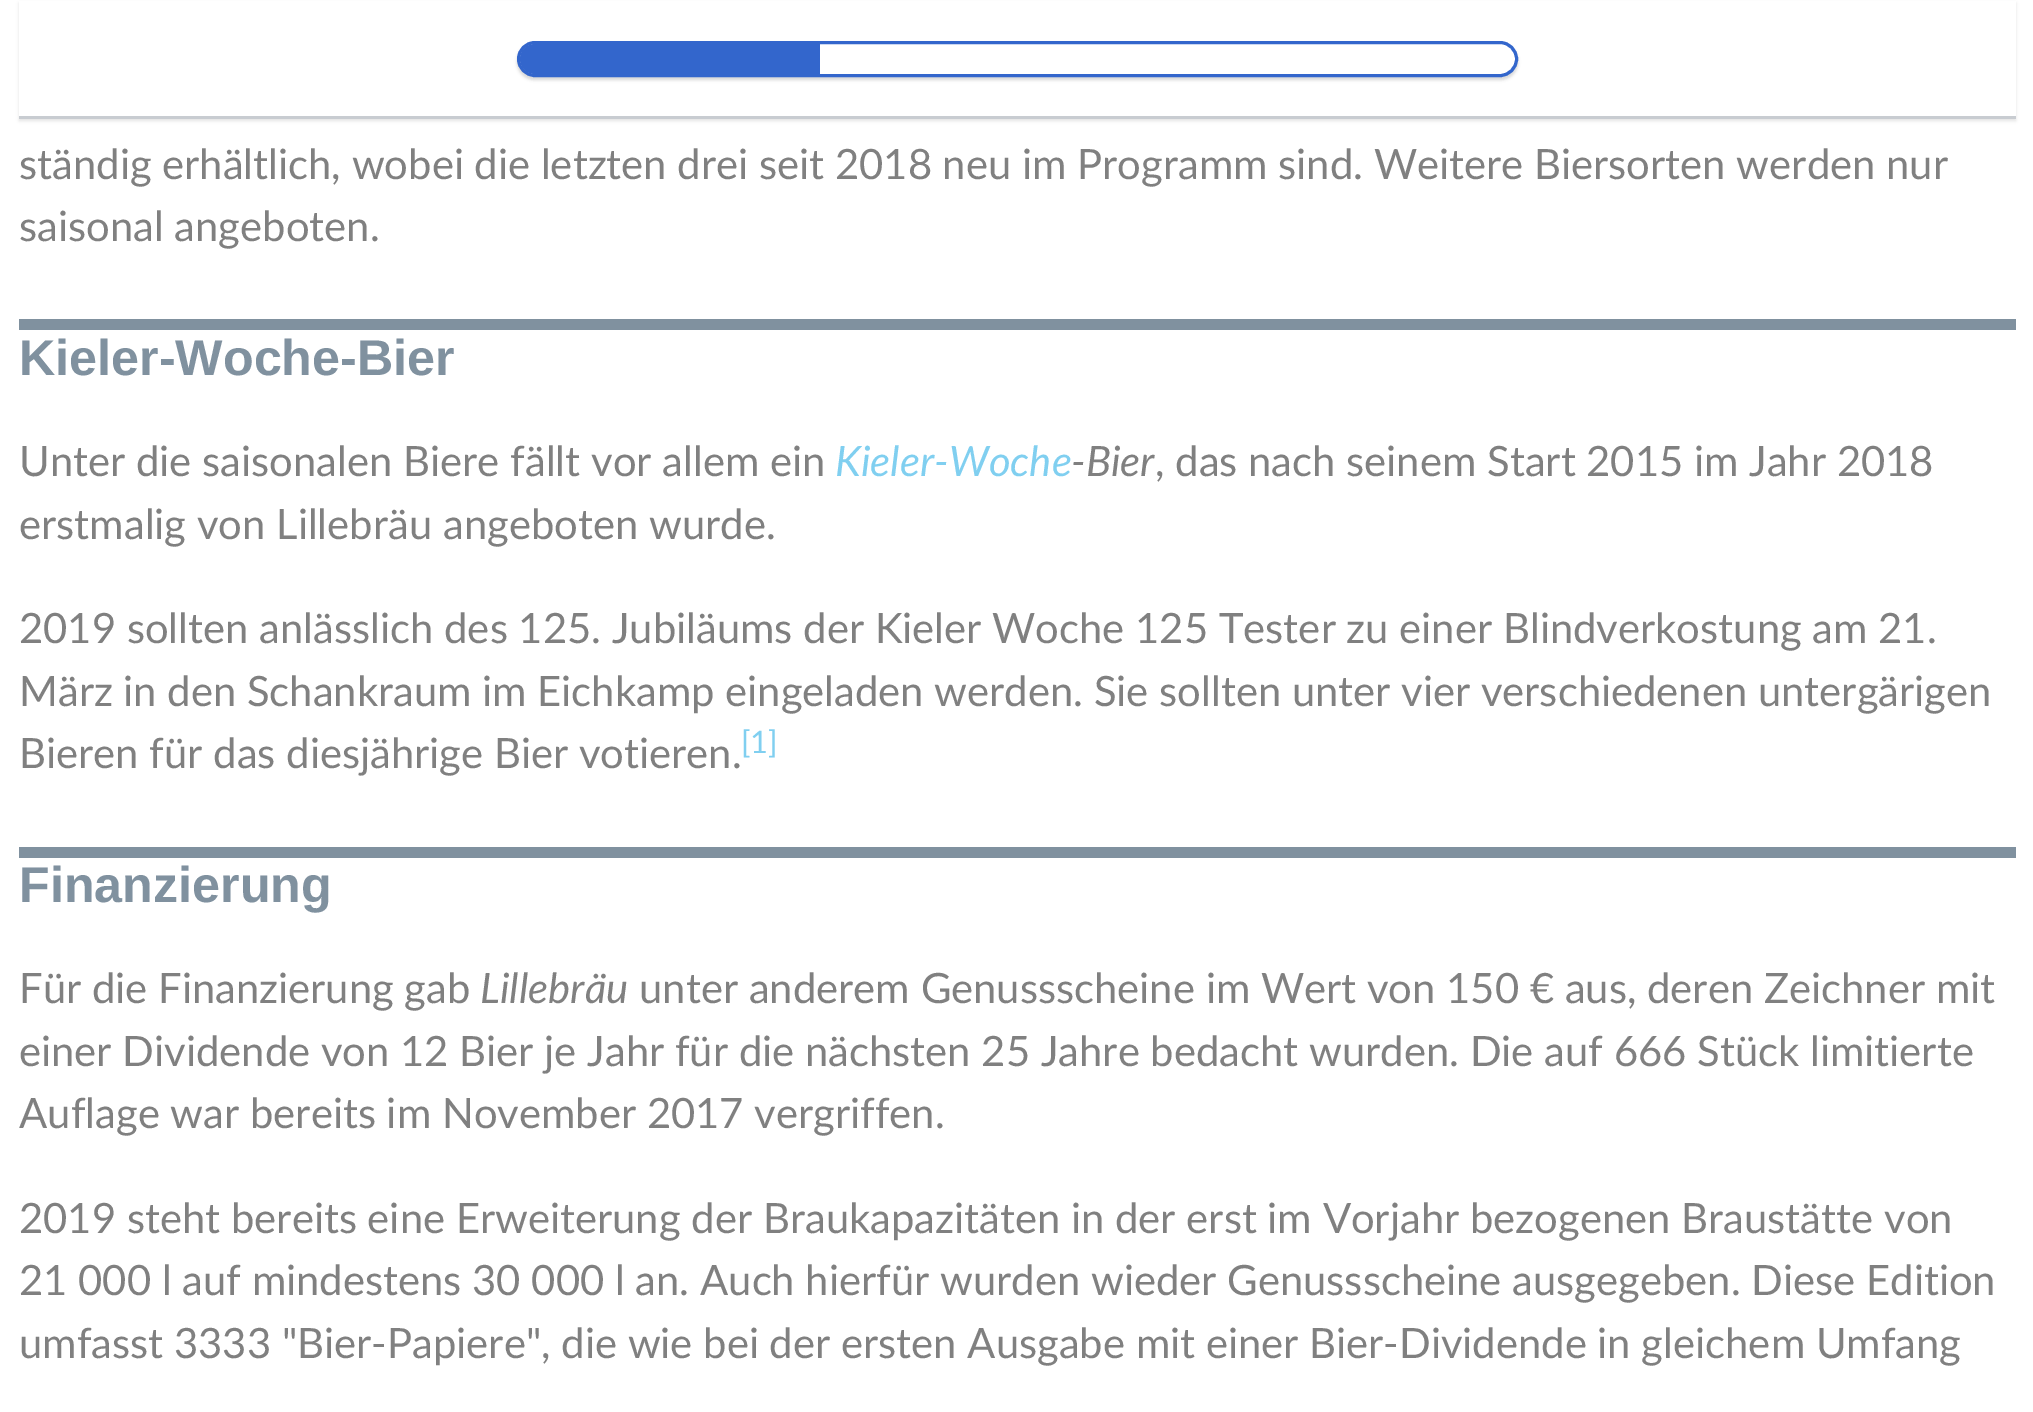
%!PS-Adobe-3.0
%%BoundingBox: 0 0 2033 1412
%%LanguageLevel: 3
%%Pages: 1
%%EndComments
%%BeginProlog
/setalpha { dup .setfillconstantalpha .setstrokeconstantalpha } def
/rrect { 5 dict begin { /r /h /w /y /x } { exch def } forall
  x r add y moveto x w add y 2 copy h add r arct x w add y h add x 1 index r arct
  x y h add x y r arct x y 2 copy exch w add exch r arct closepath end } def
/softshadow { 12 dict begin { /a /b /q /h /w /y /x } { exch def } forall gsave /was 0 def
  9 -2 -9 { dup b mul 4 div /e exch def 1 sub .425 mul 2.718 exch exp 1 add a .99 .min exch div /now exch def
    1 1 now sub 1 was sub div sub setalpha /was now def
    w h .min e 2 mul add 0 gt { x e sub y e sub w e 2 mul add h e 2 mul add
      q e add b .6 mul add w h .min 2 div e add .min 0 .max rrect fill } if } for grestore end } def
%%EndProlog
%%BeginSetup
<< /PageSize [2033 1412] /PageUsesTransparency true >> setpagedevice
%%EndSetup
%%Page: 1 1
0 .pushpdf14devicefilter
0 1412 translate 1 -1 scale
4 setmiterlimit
1 setgray
0 0 2033 1412 rectfill
0 setgray
19 3 1997 118 0 1.5 0.1 softshadow
1 setgray
19 1 1997 115 rectfill
0.784 0.8 0.82 setrgbcolor
19 116 1997 3 rectfill
0 setgray
517 44 1001 36 18 1.5 0.15 softshadow
1 setgray
518.5 42.5 998 33 16.5 rrect gsave fill grestore
0.2 0.4 0.8 setrgbcolor
3 setlinewidth
stroke
newpath 535 44 moveto 820 44 lineto 820 74 lineto 535 74 lineto 526.5 74 520 67.5 520 59 curveto 520 50.5 526.5 44 535 44 curveto closepath fill
0.502 0.569 0.624 setrgbcolor
19 319 1997 11 rectfill
19 847 1997 11 rectfill
/Lato-Regular [41.8 0 0 -41.8 0 0] selectfont
0.502 setgray
19 179 moveto (ständig erhältlich, wobei die letzten drei seit 2018 neu im Programm sind. Weitere Biersorten werden nur) show
19 241 moveto (saisonal angeboten.) show
/LiberationSans-Bold [50.25 0 0 -50.25 0 0] selectfont
0.502 0.569 0.624 setrgbcolor
19 375 moveto (Kieler-Woche-Bier) show
/Lato-Regular [41.8 0 0 -41.8 0 0] selectfont
0.502 setgray
19 476 moveto (Unter die saisonalen Biere fällt vor allem ein) show
/Lato-Italic [41.8 0 0 -41.8 0 0] selectfont
0.502 0.812 0.941 setrgbcolor
835 476 moveto (Kieler-Woche) show
0.502 setgray
1071 476 moveto (-Bier) show
/Lato-Regular [41.8 0 0 -41.8 0 0] selectfont
1155 476 moveto (, das nach seinem Start 2015 im Jahr 2018) show
19 539 moveto (erstmalig von Lillebräu angeboten wurde.) show
19 643 moveto (2019 sollten anlässlich des 125. Jubiläums der Kieler Woche 125 Tester zu einer Blindverkostung am 21.) show
19 706 moveto -0.1 0 32 (März in den Schankraum im Eichkamp eingeladen werden. Sie sollten unter vier verschiedenen untergärigen) widthshow
19 768 moveto (Bieren für das diesjährige Bier votieren.) show
/Lato-Regular [31 0 0 -31 0 0] selectfont
0.502 0.812 0.941 setrgbcolor
741 753 moveto ([1]) show
/LiberationSans-Bold [50.25 0 0 -50.25 0 0] selectfont
0.502 0.569 0.624 setrgbcolor
19 902 moveto (Finanzierung) show
/Lato-Regular [41.8 0 0 -41.8 0 0] selectfont
0.502 setgray
19 1003 moveto (Für die Finanzierung gab) show
/Lato-Italic [41.8 0 0 -41.8 0 0] selectfont
480 1003 moveto (Lillebräu) show
/Lato-Regular [41.8 0 0 -41.8 0 0] selectfont
639 1003 moveto (unter anderem Genussscheine im Wert von 150 € aus, deren Zeichner mit) show
19 1066 moveto (einer Dividende von 12 Bier je Jahr für die nächsten 25 Jahre bedacht wurden. Die auf 666 Stück limitierte) show
19 1128 moveto (Auflage war bereits im November 2017 vergriffen.) show
19 1233 moveto (2019 steht bereits eine Erweiterung der Braukapazitäten in der erst im Vorjahr bezogenen Braustätte von) show
19 1295 moveto (21 000 l auf mindestens 30 000 l an. Auch hierfür wurden wieder Genussscheine ausgegeben. Diese Edition) show
19 1358 moveto (umfasst 3333 "Bier-Papiere", die wie bei der ersten Ausgabe mit einer Bier-Dividende in gleichem Umfang) show
.poppdf14devicefilter showpage
%%EOF
